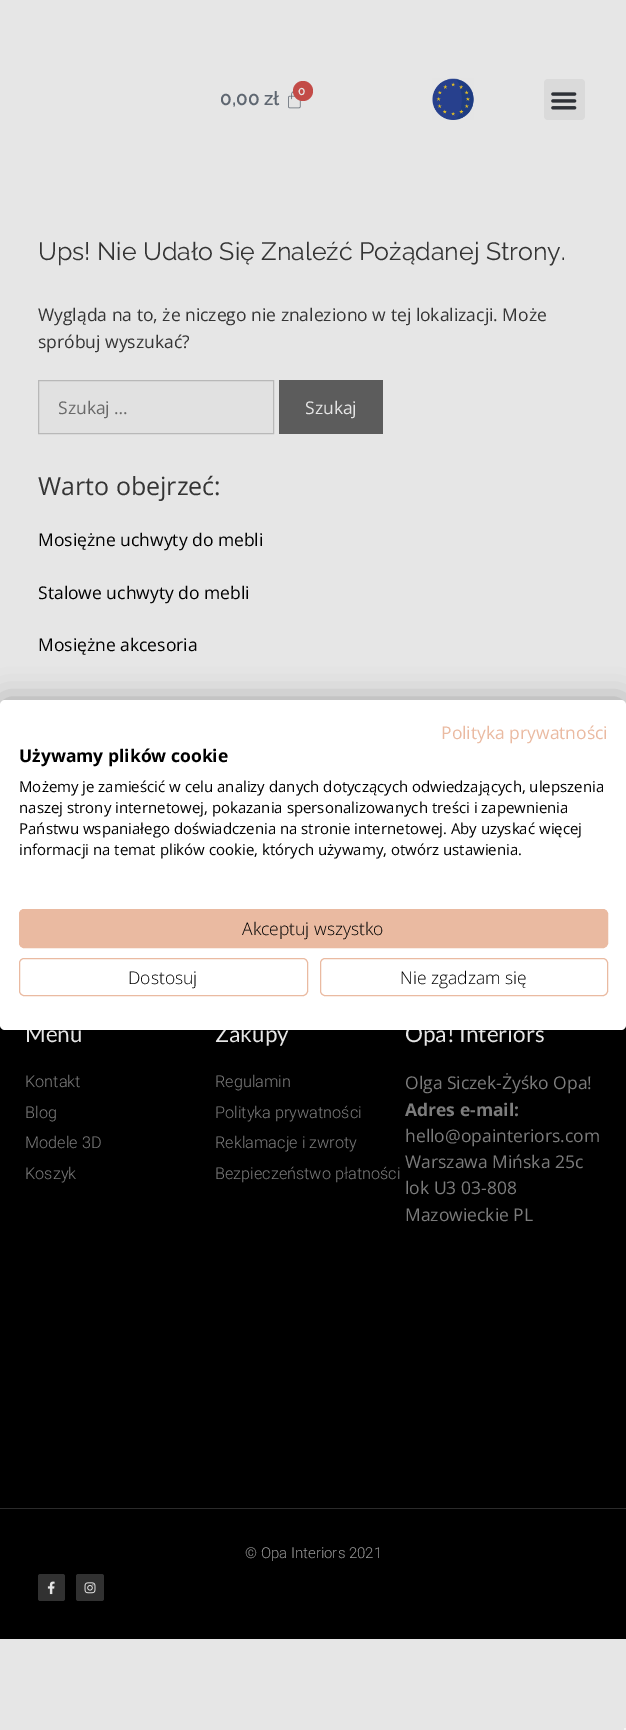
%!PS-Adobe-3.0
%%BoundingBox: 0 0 626 1730
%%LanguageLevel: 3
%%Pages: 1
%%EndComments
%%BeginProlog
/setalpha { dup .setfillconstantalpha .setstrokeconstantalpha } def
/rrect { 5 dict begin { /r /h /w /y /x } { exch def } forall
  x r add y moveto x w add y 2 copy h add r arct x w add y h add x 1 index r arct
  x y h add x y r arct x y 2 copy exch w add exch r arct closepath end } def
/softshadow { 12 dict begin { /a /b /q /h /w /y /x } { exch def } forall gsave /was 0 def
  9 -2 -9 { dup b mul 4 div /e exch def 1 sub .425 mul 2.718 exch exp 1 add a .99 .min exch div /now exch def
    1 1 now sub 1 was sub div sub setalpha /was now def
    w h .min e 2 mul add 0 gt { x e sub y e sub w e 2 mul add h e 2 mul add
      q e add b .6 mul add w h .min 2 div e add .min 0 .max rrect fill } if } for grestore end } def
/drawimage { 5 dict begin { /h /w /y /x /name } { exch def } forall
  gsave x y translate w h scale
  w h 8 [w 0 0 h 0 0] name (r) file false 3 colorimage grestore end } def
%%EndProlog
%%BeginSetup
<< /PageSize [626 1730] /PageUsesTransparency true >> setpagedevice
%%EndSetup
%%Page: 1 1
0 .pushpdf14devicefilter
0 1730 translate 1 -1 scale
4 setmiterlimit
0.902 setgray
0 0 626 1730 rectfill
(images/1.raw) 288 91 13 18 drawimage
0.765 0.294 0.278 setrgbcolor
newpath 303 91 10 0 360 arc closepath fill
(images/2.raw) 432 78 42 42 drawimage
0.855 setgray
544 79 41 41 4 rrect fill
(images/3.raw) 551 92 26 18 drawimage
0.882 setgray
newpath 38.5 380.5 moveto 273.5 380.5 lineto 273.5 433.5 lineto 38.5 433.5 lineto closepath gsave fill grestore
0.722 setgray
stroke
0.361 setgray
279 380 104 54 rectfill
0 setgray
0 1025 626 483 rectfill
0 700 626 330 5 15 0.3 softshadow
0 1509 626 130 rectfill
0.169 setgray
0 1508 626 1 rectfill
0.192 setgray
38 1574 27 27 2.5 rrect fill
(images/4.raw) 47 1581 8 14 drawimage
76 1574 28 27 2.5 rrect fill
(images/5.raw) 84 1582 12 12 drawimage
0.961 setgray
624 1728 2 2 rectfill
/Raleway-SemiBold [19 0 0 -19 0 0] selectfont
0.373 0.404 0.443 setrgbcolor
220 105 moveto (0,00 zł) show
/Raleway-SemiBold [12 0 0 -12 0 0] selectfont
0.902 setgray
298 95 moveto (0) show
/Raleway-Regular [25 0 0 -25 0 0] selectfont
0.204 setgray
38 260 moveto (Ups! Nie Udało Się Znaleźć Pożądanej Strony.) show
/OpenSans-Regular [17.5 0 0 -17.5 0 0] selectfont
38 321 moveto (Wygląda na to, że niczego nie znaleziono w tej lokalizacji. Może) show
38 348 moveto (spróbuj wyszukać?) show
0.412 setgray
58 414 moveto (Szukaj …) show
0.902 setgray
305 414 moveto (Szukaj) show
/OpenSans-Regular [25 0 0 -25 0 0] selectfont
0.204 setgray
38 495 moveto (Warto obejrzeć:) show
/OpenSans-Regular [17.5 0 0 -17.5 0 0] selectfont
0 setgray
38 546 moveto (Mosiężne uchwyty do mebli) show
38 599 moveto (Stalowe uchwyty do mebli) show
38 651 moveto (Mosiężne akcesoria) show
/Lato-Regular [22.5 0 0 -22.5 0 0] selectfont
0.902 setgray
25 1042 moveto (Menu) show
/Roboto-Light [16.25 0 0 -16.25 0 0] selectfont
0.486 setgray
25 1087 moveto (Kontakt) show
25 1118 moveto (Blog) show
25 1148 moveto (Modele 3D) show
25 1179 moveto (Koszyk) show
/Lato-Regular [22.5 0 0 -22.5 0 0] selectfont
0.902 setgray
215 1042 moveto (Zakupy) show
/Roboto-Light [16.25 0 0 -16.25 0 0] selectfont
0.486 setgray
215 1087 moveto (Regulamin) show
215 1118 moveto (Polityka prywatności) show
215 1148 moveto (Reklamacje i zwroty) show
215 1179 moveto (Bezpieczeństwo płatności) show
/Lato-Regular [22.5 0 0 -22.5 0 0] selectfont
0.902 setgray
405 1042 moveto (Opa! Interiors) show
1 setgray
0 700 626 330 5 rrect fill
0.918 0.729 0.631 setrgbcolor
320.5 958.5 287 37 4.5 rrect stroke
/OpenSans-Light [17.5 0 0 -17.5 0 0] selectfont
0 setgray
400 984 moveto (Nie zgadzam się) show
0.918 0.729 0.631 setrgbcolor
19.5 958.5 288 37 4.5 rrect stroke
0 setgray
128 984 moveto (Dostosuj) show
0.918 0.729 0.631 setrgbcolor
19.5 909.5 588 38 4.5 rrect gsave fill grestore
stroke
0 setgray
242 935 moveto (Akceptuj wszystko) show
/OpenSans-Regular [15 0 0 -15 0 0] selectfont
19 855 moveto (informacji na temat plików cookie, których używamy, otwórz ustawienia.) show
19 834 moveto (Państwu wspaniałego doświadczenia na stronie internetowej. Aby uzyskać więcej) show
19 813 moveto (naszej strony internetowej, pokazania spersonalizowanych treści i zapewnienia) show
19 792 moveto (Możemy je zamieścić w celu analizy danych dotyczących odwiedzających, ulepszenia) show
/OpenSans-Bold [17.5 0 0 -17.5 0 0] selectfont
19 762 moveto (Używamy plików cookie) show
/OpenSans-Regular [17.5 0 0 -17.5 0 0] selectfont
0.918 0.729 0.631 setrgbcolor
441 739 moveto (Polityka prywatności) show
0.486 setgray
405 1089 moveto (Olga Siczek-Żyśko Opa!) show
/OpenSans-Bold [17.5 0 0 -17.5 0 0] selectfont
405 1116 moveto (Adres e-mail:) show
/OpenSans-Regular [17.5 0 0 -17.5 0 0] selectfont
405 1142 moveto (hello@opainteriors.com) show
405 1168 moveto (Warszawa Mińska 25c) show
405 1194 moveto (lok U3 03-808) show
405 1221 moveto (Mazowieckie PL) show
/Roboto-Light [15 0 0 -15 0 0] selectfont
0.612 setgray
245 1558 moveto (© Opa Interiors 2021) show
.poppdf14devicefilter showpage
%%EOF
